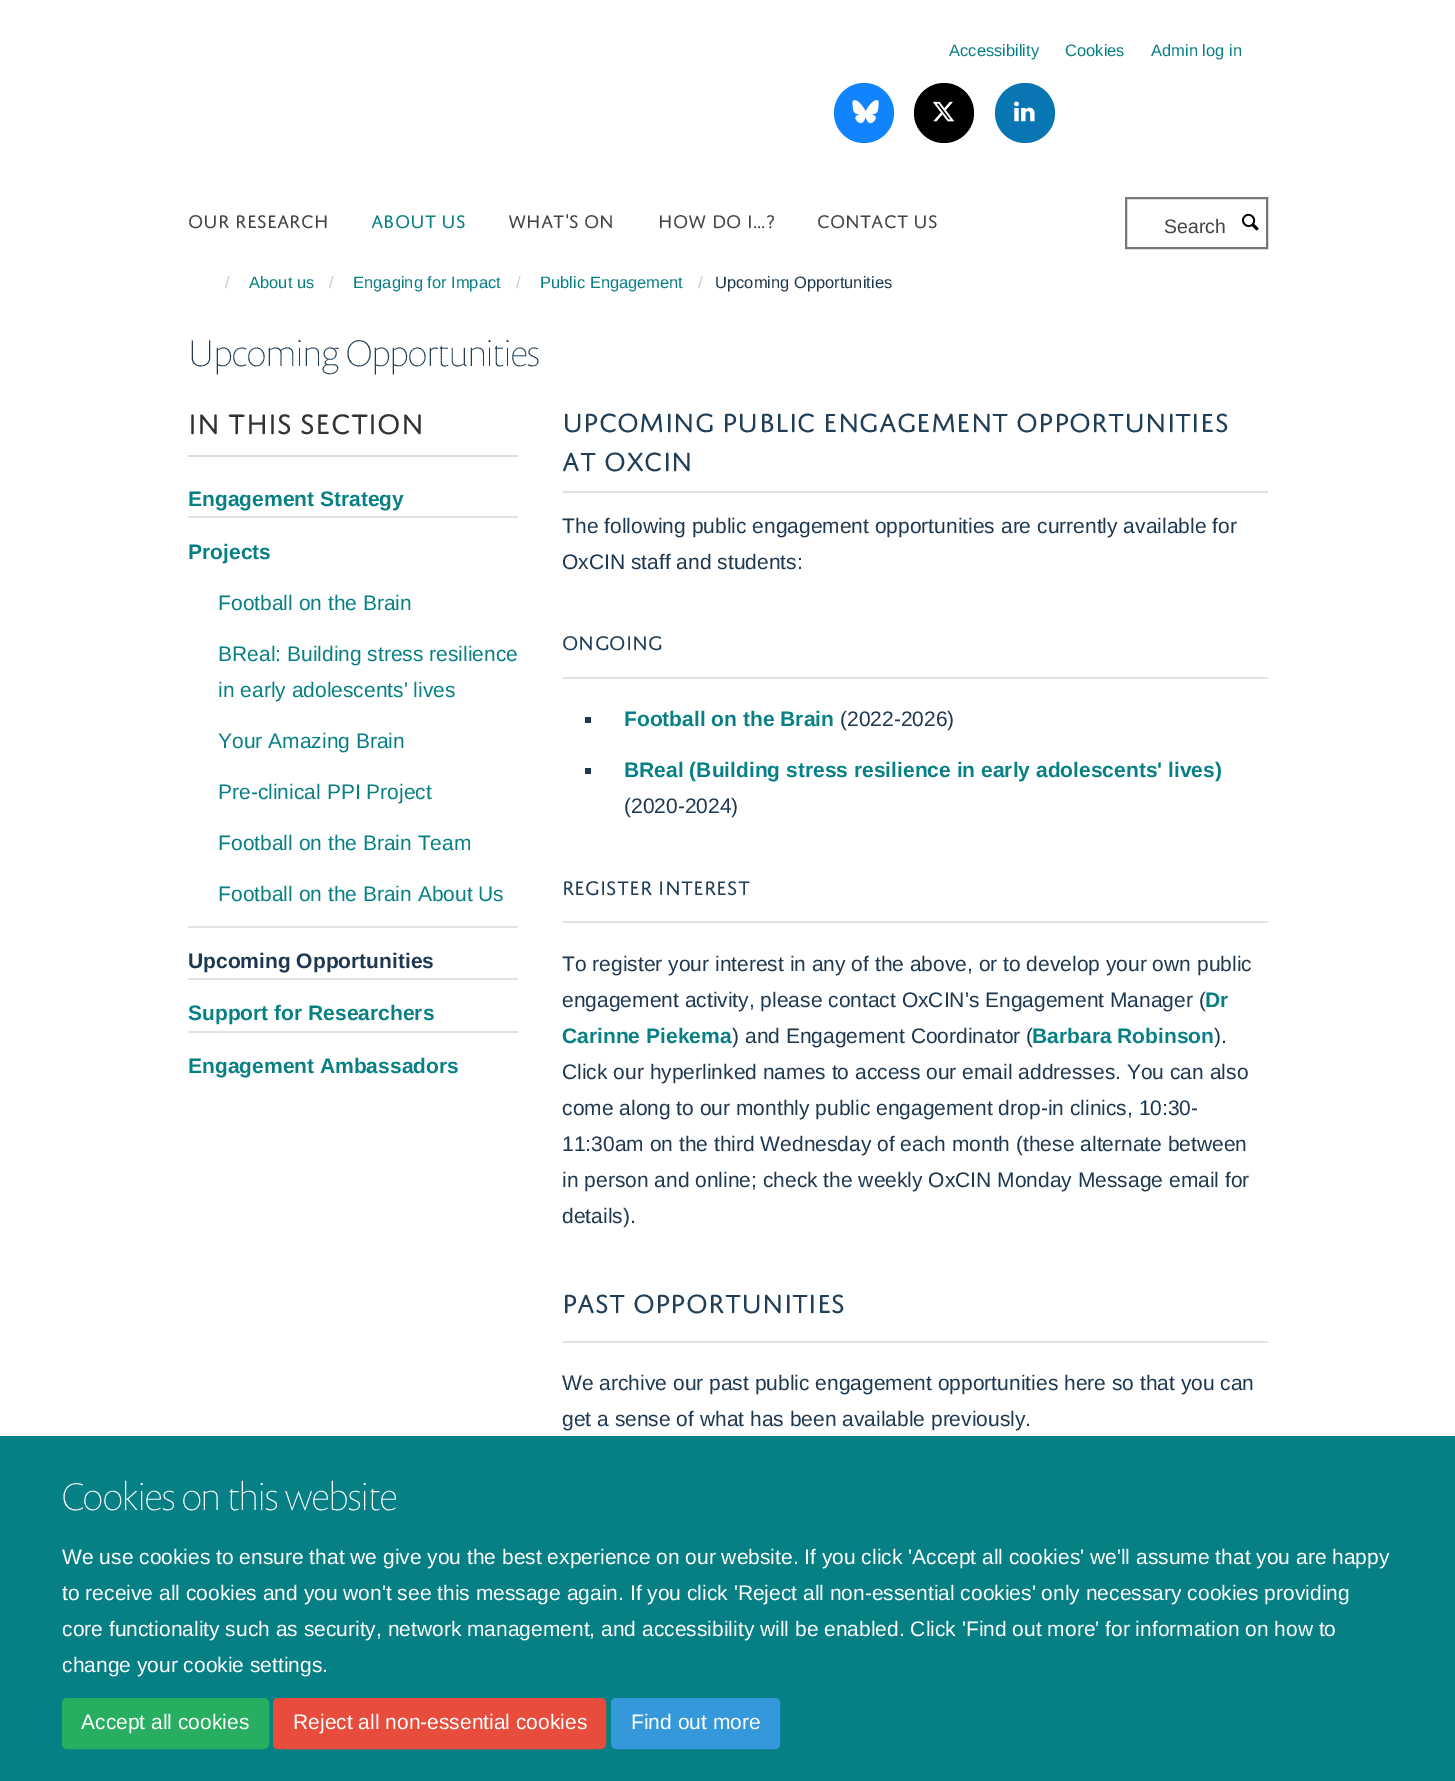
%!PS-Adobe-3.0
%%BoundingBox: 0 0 1455 1781
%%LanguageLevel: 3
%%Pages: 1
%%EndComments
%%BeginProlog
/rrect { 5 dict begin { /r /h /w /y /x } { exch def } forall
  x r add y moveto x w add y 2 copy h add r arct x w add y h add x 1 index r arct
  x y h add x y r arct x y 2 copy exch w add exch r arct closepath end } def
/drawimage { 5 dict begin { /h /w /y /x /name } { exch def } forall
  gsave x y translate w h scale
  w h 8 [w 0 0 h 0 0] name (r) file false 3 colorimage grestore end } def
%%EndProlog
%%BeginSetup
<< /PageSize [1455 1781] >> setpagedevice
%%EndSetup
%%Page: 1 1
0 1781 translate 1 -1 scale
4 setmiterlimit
1 setgray
0 0 1455 1781 rectfill
0.067 0.514 0.988 setrgbcolor
newpath 864 113 30 0 360 arc closepath fill
(images/1.raw) 852 100 27 24 drawimage
0 setgray
newpath 944 113 30 0 360 arc closepath fill
(images/2.raw) 932 101 23 21 drawimage
0.035 0.463 0.706 setrgbcolor
newpath 1025 113 30 0 360 arc closepath fill
(images/3.raw) 1014 101 21 21 drawimage
0.467 setgray
2 setlinewidth
1126 198 141 50 rectstroke
(images/4.raw) 1242 213 17 18 drawimage
0.867 setgray
188 455 330 2 rectfill
0.875 0.882 0.894 setrgbcolor
188 516 330 2 rectfill
188 926 330 2 rectfill
188 978 330 2 rectfill
188 1031 330 2 rectfill
563 491 705 2 rectfill
563 677 705 2 rectfill
0.114 0.22 0.314 setrgbcolor
585 717 6 6 rectfill
585 768 6 6 rectfill
0.875 0.882 0.894 setrgbcolor
563 921 705 2 rectfill
563 1341 705 2 rectfill
0.027 0.502 0.522 setrgbcolor
0 1436 1455 345 rectfill
0.153 0.682 0.376 setrgbcolor
63 1699 205 49 4 rrect gsave fill grestore
stroke
0.906 0.298 0.235 setrgbcolor
274 1699 331 49 4 rrect gsave fill grestore
stroke
0.204 0.596 0.859 setrgbcolor
612 1699 167 49 4 rrect gsave fill grestore
stroke
/LiberationSans-Regular [16.5 0 0 -16.5 0 0] selectfont
0.027 0.502 0.522 setrgbcolor
949 56 moveto (Accessibility) show
1065 56 moveto (Cookies) show
1151 56 moveto (Admin log in) show
/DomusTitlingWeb-Regular [19.5 0 0 -19.5 0 0] selectfont
0.267 setgray
188 228 moveto (OUR RESEARCH) show
0.027 0.502 0.522 setrgbcolor
371 228 moveto (ABOUT US) show
0.267 setgray
508 228 moveto (WHAT'S ON) show
658 228 moveto (HOW DO I...?) show
817 228 moveto (CONTACT US) show
/LiberationSans-Regular [19.5 0 0 -19.5 0 0] selectfont
1164 233 moveto (Search) show
/LiberationSans-Regular [16.5 0 0 -16.5 0 0] selectfont
0.8 setgray
225 288 moveto (/) show
0.027 0.502 0.522 setrgbcolor
249 288 moveto (About us) show
0.8 setgray
329 288 moveto (/) show
0.027 0.502 0.522 setrgbcolor
353 288 moveto (Engaging for Impact) show
0.8 setgray
516 288 moveto (/) show
0.027 0.502 0.522 setrgbcolor
540 288 moveto (Public Engagement) show
0.8 setgray
698 288 moveto (/) show
0.114 0.22 0.314 setrgbcolor
715 288 moveto (Upcoming Opportunities) show
/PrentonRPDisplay-Thin [37.5 0 0 -37.5 0 0] selectfont
0.125 0.243 0.345 setrgbcolor
188 366 moveto (Upcoming Opportunities) show
/DomusTitlingWeb-Regular [30 0 0 -30 0 0] selectfont
0.2 setgray
188 434 moveto (IN THIS SECTION) show
/LiberationSans-Bold [21 0 0 -21 0 0] selectfont
0.027 0.502 0.522 setrgbcolor
188 506 moveto (Engagement Strategy) show
188 559 moveto (Projects) show
/LiberationSans-Regular [21 0 0 -21 0 0] selectfont
218 610 moveto (Football on the Brain) show
218 661 moveto (BReal: Building stress resilience) show
218 697 moveto (in early adolescents' lives) show
218 748 moveto (Your Amazing Brain) show
218 799 moveto (Pre-clinical PPI Project) show
218 850 moveto (Football on the Brain Team) show
218 901 moveto (Football on the Brain About Us) show
/LiberationSans-Bold [21 0 0 -21 0 0] selectfont
0.114 0.22 0.314 setrgbcolor
188 968 moveto (Upcoming Opportunities) show
0.027 0.502 0.522 setrgbcolor
188 1020 moveto (Support for Researchers) show
188 1073 moveto (Engagement Ambassadors) show
/DomusTitlingWeb-Regular [28 0 0 -28 0 0] selectfont
0.125 0.243 0.345 setrgbcolor
562 432 moveto (UPCOMING PUBLIC ENGAGEMENT OPPORTUNITIES) show
562 471 moveto (AT OXCIN) show
/LiberationSans-Regular [21 0 0 -21 0 0] selectfont
0.114 0.22 0.314 setrgbcolor
562 533 moveto (The following public engagement opportunities are currently available for) show
562 569 moveto (OxCIN staff and students:) show
/DomusTitlingWeb-Regular [21 0 0 -21 0 0] selectfont
0.125 0.243 0.345 setrgbcolor
562 650 moveto (ONGOING) show
/LiberationSans-Bold [21 0 0 -21 0 0] selectfont
0.027 0.502 0.522 setrgbcolor
624 726 moveto (Football on the Brain) show
/LiberationSans-Regular [21 0 0 -21 0 0] selectfont
0.114 0.22 0.314 setrgbcolor
840 726 moveto (\(2022-2026\)) show
/LiberationSans-Bold [21 0 0 -21 0 0] selectfont
0.027 0.502 0.522 setrgbcolor
624 777 moveto (BReal \(Building stress resilience in early adolescents' lives\)) show
/LiberationSans-Regular [21 0 0 -21 0 0] selectfont
0.114 0.22 0.314 setrgbcolor
624 813 moveto (\(2020-2024\)) show
/DomusTitlingWeb-Regular [21 0 0 -21 0 0] selectfont
0.125 0.243 0.345 setrgbcolor
562 895 moveto (REGISTER INTEREST) show
/LiberationSans-Regular [21 0 0 -21 0 0] selectfont
0.114 0.22 0.314 setrgbcolor
562 971 moveto (To register your interest in any of the above, or to develop your own public) show
562 1007 moveto (engagement activity, please contact OxCIN's Engagement Manager \() show
/LiberationSans-Bold [21 0 0 -21 0 0] selectfont
0.027 0.502 0.522 setrgbcolor
1205 1007 moveto (Dr) show
562 1043 moveto (Carinne Piekema) show
/LiberationSans-Regular [21 0 0 -21 0 0] selectfont
0.114 0.22 0.314 setrgbcolor
732 1043 moveto (\) and Engagement Coordinator \() show
/LiberationSans-Bold [21 0 0 -21 0 0] selectfont
0.027 0.502 0.522 setrgbcolor
1032 1043 moveto (Barbara Robinson) show
/LiberationSans-Regular [21 0 0 -21 0 0] selectfont
0.114 0.22 0.314 setrgbcolor
1214 1043 moveto (\).) show
562 1079 moveto (Click our hyperlinked names to access our email addresses. You can also) show
562 1115 moveto (come along to our monthly public engagement drop-in clinics, 10:30-) show
562 1151 moveto (11:30am on the third Wednesday of each month \(these alternate between) show
562 1187 moveto (in person and online; check the weekly OxCIN Monday Message email for) show
562 1223 moveto (details\).) show
/DomusTitlingWeb-Regular [28 0 0 -28 0 0] selectfont
0.125 0.243 0.345 setrgbcolor
562 1313 moveto (PAST OPPORTUNITIES) show
/LiberationSans-Regular [21 0 0 -21 0 0] selectfont
0.114 0.22 0.314 setrgbcolor
562 1390 moveto (We archive our past public engagement opportunities here so that you can) show
562 1426 moveto (get a sense of what has been available previously.) show
/PrentonRPDisplay-Thin [39 0 0 -39 0 0] selectfont
1 setgray
62 1510 moveto (Cookies on this website) show
/LiberationSans-Regular [21 0 0 -21 0 0] selectfont
62 1564 moveto (We use cookies to ensure that we give you the best experience on our website. If you click 'Accept all cookies' we'll assume that you are happy) show
62 1600 moveto (to receive all cookies and you won't see this message again. If you click 'Reject all non-essential cookies' only necessary cookies providing) show
62 1636 moveto (core functionality such as security, network management, and accessibility will be enabled. Click 'Find out more' for information on how to) show
62 1672 moveto (change your cookie settings.) show
81 1729 moveto (Accept all cookies) show
293 1729 moveto (Reject all non-essential cookies) show
631 1729 moveto (Find out more) show
showpage
%%EOF
